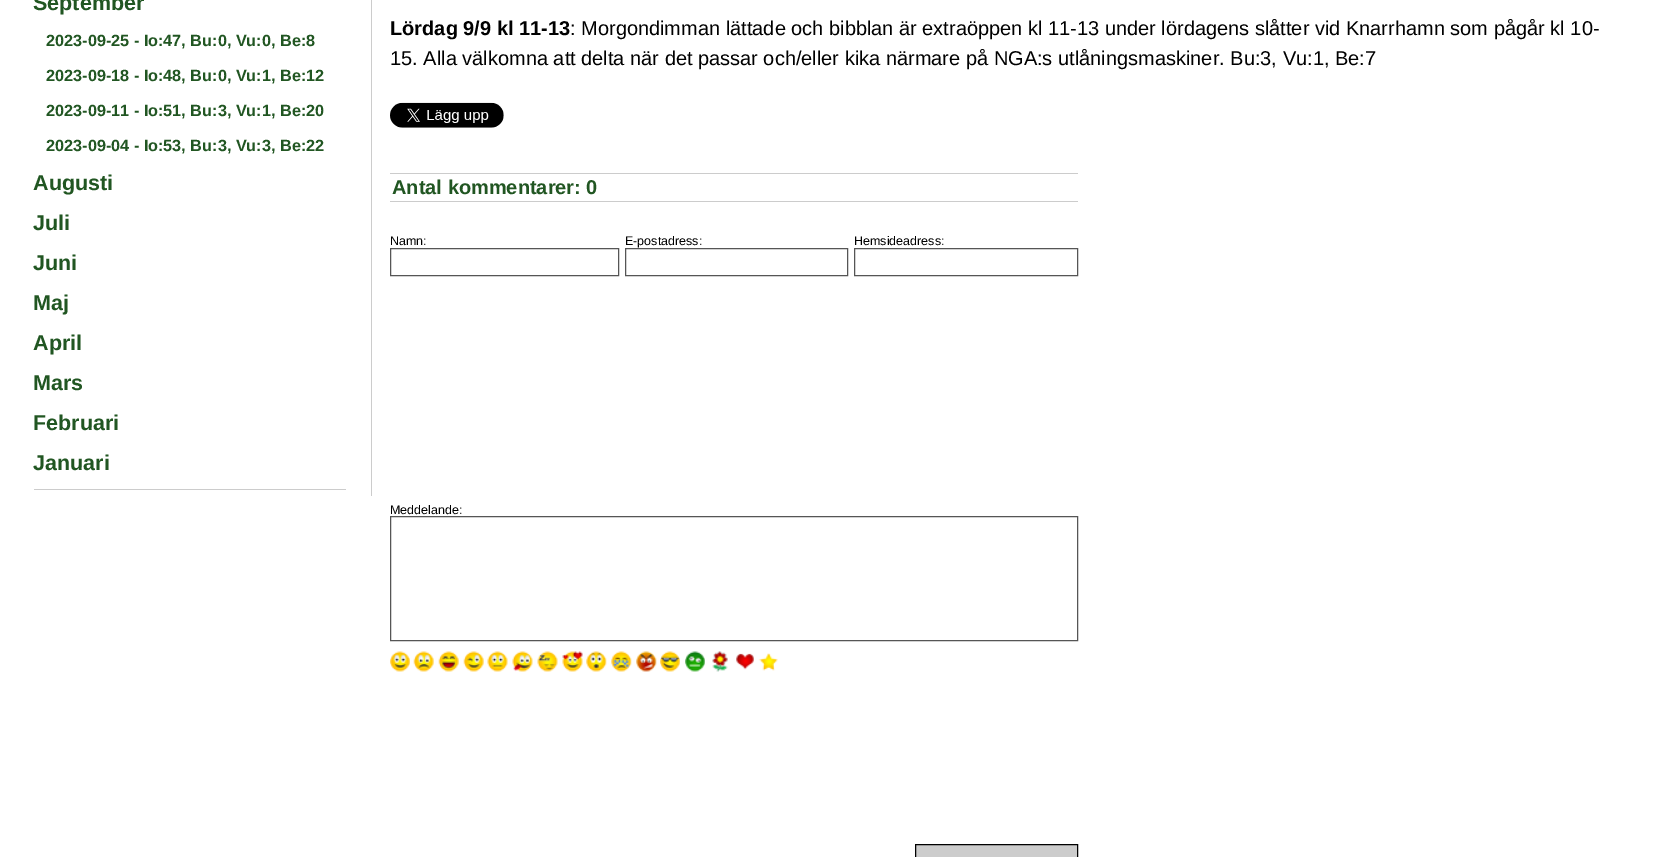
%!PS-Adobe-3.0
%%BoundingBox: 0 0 1658 857
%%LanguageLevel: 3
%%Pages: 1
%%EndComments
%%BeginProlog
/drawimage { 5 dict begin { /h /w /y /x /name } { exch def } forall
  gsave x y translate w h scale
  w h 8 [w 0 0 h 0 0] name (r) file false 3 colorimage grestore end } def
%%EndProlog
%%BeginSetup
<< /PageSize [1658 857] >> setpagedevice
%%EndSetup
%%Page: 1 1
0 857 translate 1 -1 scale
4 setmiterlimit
1 setgray
0 0 1658 857 rectfill
0.8 setgray
371 0 1 496 rectfill
34 489 312 1 rectfill
(images/1.raw) 390 102 114 26 drawimage
390 173 688 1 rectfill
390 201 688 1 rectfill
0.333 setgray
390.5 248.5 228 27 rectstroke
625.5 248.5 222 27 rectstroke
854.5 248.5 223 27 rectstroke
390.5 516.5 687 124 rectstroke
(images/2.raw) 390 651 20 21 drawimage
(images/3.raw) 413 651 21 21 drawimage
(images/4.raw) 438 651 21 21 drawimage
(images/5.raw) 463 651 21 21 drawimage
(images/6.raw) 487 651 21 21 drawimage
(images/7.raw) 512 651 21 21 drawimage
(images/8.raw) 537 651 21 21 drawimage
(images/9.raw) 562 651 21 21 drawimage
(images/10.raw) 586 651 21 21 drawimage
(images/11.raw) 611 651 21 21 drawimage
(images/12.raw) 636 651 21 21 drawimage
(images/13.raw) 660 651 20 21 drawimage
(images/14.raw) 685 651 20 21 drawimage
(images/15.raw) 712 651 16 21 drawimage
(images/16.raw) 736 653 18 17 drawimage
(images/17.raw) 758 653 20 18 drawimage
0.8 setgray
newpath 915.5 844.5 moveto 1077.5 844.5 lineto 1077.5 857.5 lineto 915.5 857.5 lineto closepath gsave fill grestore
0 setgray
stroke
/LiberationSans-Bold [21.5 0 0 -21.5 0 0] selectfont
0.129 0.337 0.133 setrgbcolor
33 10 moveto (September) show
/LiberationSans-Bold [16.25 0 0 -16.25 0 0] selectfont
46 46 moveto (2023-09-25 - Io:47, Bu:0, Vu:0, Be:8) show
46 81 moveto (2023-09-18 - Io:48, Bu:0, Vu:1, Be:12) show
46 116 moveto (2023-09-11 - Io:51, Bu:3, Vu:1, Be:20) show
46 151 moveto (2023-09-04 - Io:53, Bu:3, Vu:3, Be:22) show
/LiberationSans-Bold [21.5 0 0 -21.5 0 0] selectfont
33 190 moveto (Augusti) show
33 230 moveto (Juli) show
33 270 moveto (Juni) show
33 310 moveto (Maj) show
33 350 moveto (April) show
33 390 moveto (Mars) show
33 430 moveto (Februari) show
33 470 moveto (Januari) show
/LiberationSans-Bold [20 0 0 -20 0 0] selectfont
0 setgray
390 35 moveto (Lördag 9/9 kl 11-13) show
/LiberationSans-Regular [20 0 0 -20 0 0] selectfont
570 35 moveto (: Morgondimman lättade och bibblan är extraöppen kl 11-13 under lördagens slåtter vid Knarrhamn som pågår kl 10-) show
390 65 moveto (15. Alla välkomna att delta när det passar och/eller kika närmare på NGA:s utlåningsmaskiner. Bu:3, Vu:1, Be:7) show
/LiberationSans-Bold [20 0 0 -20 0 0] selectfont
0.129 0.337 0.133 setrgbcolor
392 194 moveto (Antal kommentarer: 0) show
/LiberationSans-Regular [12.5 0 0 -12.5 0 0] selectfont
0 setgray
390 245 moveto (Namn:) show
625 245 moveto (E-postadress:) show
854 245 moveto (Hemsideadress:) show
390 514 moveto (Meddelande:) show
showpage
%%EOF
